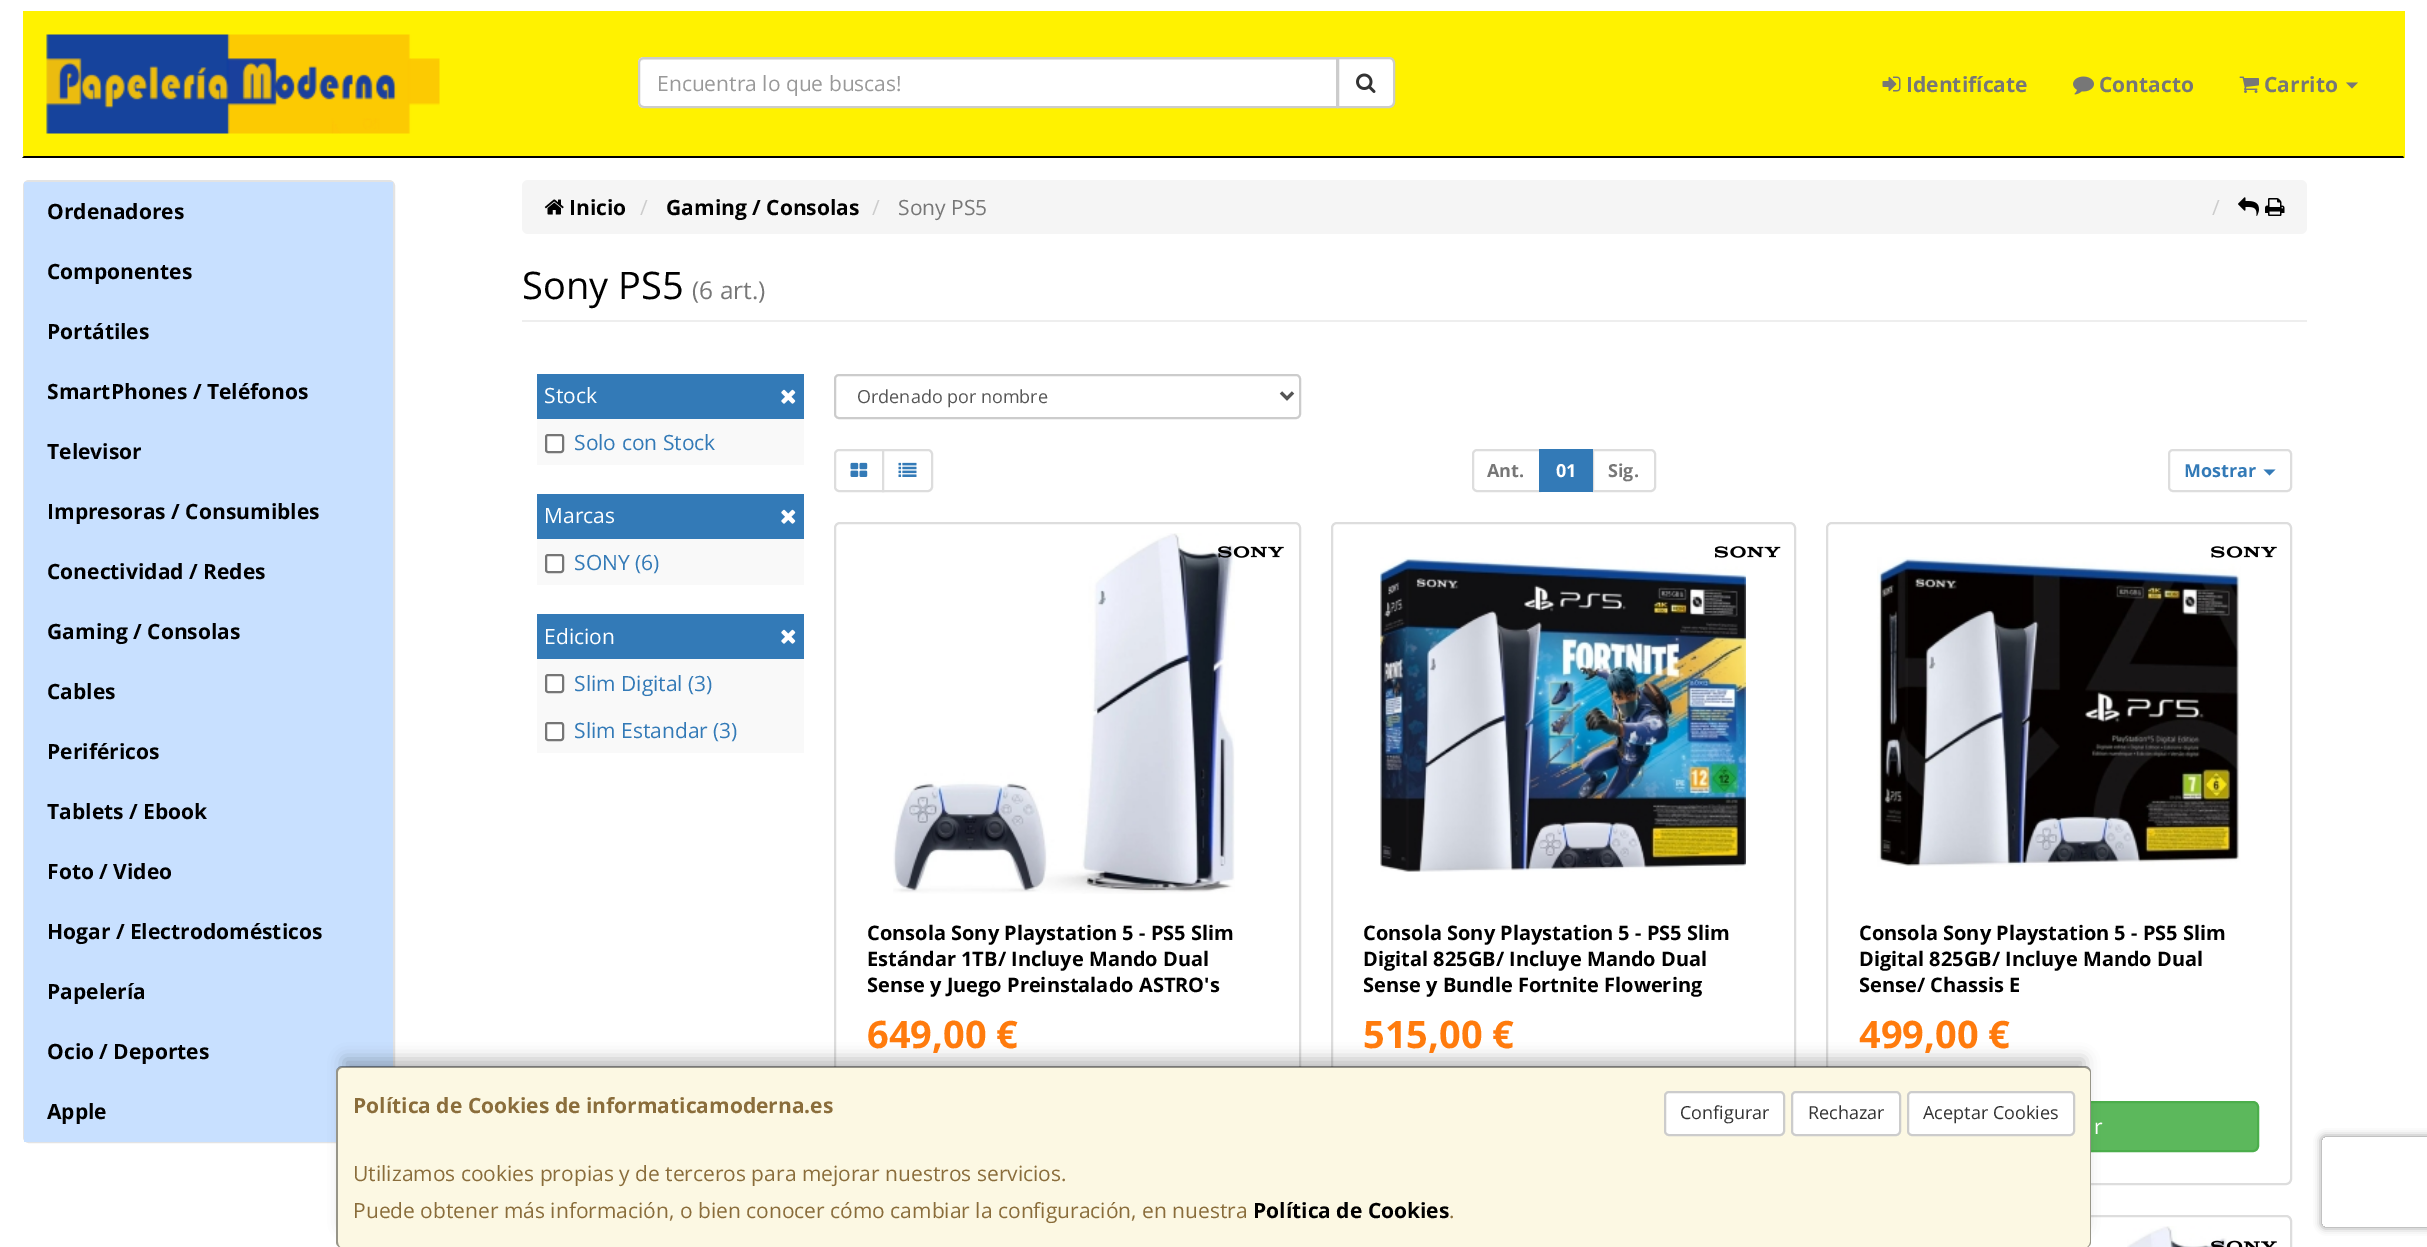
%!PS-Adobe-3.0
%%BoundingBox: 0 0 2427 1247
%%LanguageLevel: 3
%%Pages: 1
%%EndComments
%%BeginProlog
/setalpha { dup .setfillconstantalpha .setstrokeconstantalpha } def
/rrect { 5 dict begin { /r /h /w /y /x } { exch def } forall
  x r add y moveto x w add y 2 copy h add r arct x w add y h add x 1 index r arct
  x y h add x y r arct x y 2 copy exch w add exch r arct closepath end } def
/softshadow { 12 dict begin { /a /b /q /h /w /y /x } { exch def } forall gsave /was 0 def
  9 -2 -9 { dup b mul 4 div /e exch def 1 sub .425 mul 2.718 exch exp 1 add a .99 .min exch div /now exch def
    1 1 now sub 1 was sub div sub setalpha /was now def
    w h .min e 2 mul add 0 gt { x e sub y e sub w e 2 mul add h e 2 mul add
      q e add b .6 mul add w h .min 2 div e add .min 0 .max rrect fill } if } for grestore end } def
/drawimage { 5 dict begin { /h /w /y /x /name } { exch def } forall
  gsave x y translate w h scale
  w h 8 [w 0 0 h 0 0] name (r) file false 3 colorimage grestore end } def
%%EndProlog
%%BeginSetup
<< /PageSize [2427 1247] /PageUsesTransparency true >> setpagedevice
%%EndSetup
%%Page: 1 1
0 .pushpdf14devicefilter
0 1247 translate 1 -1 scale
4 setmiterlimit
1 setgray
0 0 2427 1247 rectfill
1 0.949 0 setrgbcolor
23 11 2382 147 rectfill
0 setgray
newpath 2404 158 moveto 22 158 lineto 24 156 lineto 2403 156 lineto closepath fill
(images/1.raw) 46 34 394 100 drawimage
1 setgray
newpath 1338 58 moveto 1389 58 lineto 1392 58 1394 60 1394 63 curveto 1394 102 lineto 1394 105 1392 107 1389 107 curveto 1338 107 lineto closepath gsave fill grestore
0.8 setgray
2 setlinewidth
stroke
1 setgray
newpath 644 57 moveto 1338 57 lineto 1338 108 lineto 644 108 lineto 640.5 108 638 105.5 638 102 curveto 638 63 lineto 638 59.5 640.5 57 644 57 curveto closepath fill
0.925 setgray
newpath 644 60 moveto 1336 60 lineto 1336 107 lineto 1337 107 lineto 1337 59 lineto 644 59 lineto 641 59 639 61 639 64 curveto 639 62 641 60 644 60 curveto closepath fill
0.8 setgray
newpath 644 58 moveto 1337 58 lineto 1337 107 lineto 644 107 lineto 641 107 639 105 639 102 curveto 639 63 lineto 639 60 641 58 644 58 curveto closepath stroke
(images/2.raw) 1356 73 20 20 drawimage
(images/3.raw) 1882 76 19 16 drawimage
(images/4.raw) 2073 76 21 19 drawimage
(images/5.raw) 2239 76 20 17 drawimage
0.467 setgray
newpath 2346 82.5 moveto 2358 82.5 lineto 2352 88.5 lineto closepath fill
0.89 setgray
24 181 370 961 5 rrect stroke
0.784 0.878 1 setrgbcolor
24 182 369 960 rectfill
0.961 setgray
522 180 1785 54 6 rrect fill
(images/6.raw) 544 199 20 16 drawimage
(images/7.raw) 2238 197 21 19 drawimage
(images/8.raw) 2265 198 20 18 drawimage
0.933 setgray
522 320 1785 2 rectfill
0.2 0.478 0.718 setrgbcolor
537 374 267 45 rectfill
(images/9.raw) 781 389 15 15 drawimage
0.976 setgray
537 419 267 46 rectfill
1 setgray
546 435 17 17 2 rrect gsave fill grestore
0.463 setgray
stroke
0.2 0.478 0.718 setrgbcolor
537 494 267 45 rectfill
(images/9.raw) 781 509 15 15 drawimage
0.976 setgray
537 539 267 46 rectfill
1 setgray
546 555 17 17 2 rrect gsave fill grestore
0.463 setgray
stroke
0.2 0.478 0.718 setrgbcolor
537 614 267 45 rectfill
(images/9.raw) 781 629 15 15 drawimage
0.976 setgray
537 659 267 94 rectfill
1 setgray
546 675 17 17 2 rrect gsave fill grestore
0.463 setgray
stroke
1 setgray
546 723 17 17 2 rrect gsave fill grestore
0.463 setgray
stroke
0.8 setgray
835 375 465 43 4 rrect stroke
0.333 setgray
3 setlinewidth
newpath 1281 392.5 moveto 1287 398.5 lineto 1293 392.5 lineto stroke
0.867 setgray
2 setlinewidth
newpath 839 450 moveto 883 450 lineto 883 491 lineto 839 491 lineto 837 491 835 489 835 487 curveto 835 454 lineto 835 452 837 450 839 450 curveto closepath stroke
(images/10.raw) 850 462 18 15 drawimage
1 setgray
newpath 883 450 moveto 928 450 lineto 930 450 932 452 932 454 curveto 932 487 lineto 932 489 930 491 928 491 curveto 883 491 lineto closepath gsave fill grestore
0.867 setgray
stroke
(images/11.raw) 898 462 19 15 drawimage
newpath 1477 450 moveto 1540 450 lineto 1540 491 lineto 1477 491 lineto 1475 491 1473 489 1473 487 curveto 1473 454 lineto 1473 452 1475 450 1477 450 curveto closepath stroke
newpath 1593 450 moveto 1651 450 lineto 1653 450 1655 452 1655 454 curveto 1655 487 lineto 1655 489 1653 491 1651 491 curveto 1593 491 lineto closepath stroke
0.2 0.478 0.718 setrgbcolor
1539 449 54 43 rectfill
0.867 setgray
2169 450 122 41 4 rrect stroke
0.2 0.478 0.718 setrgbcolor
newpath 2263.5 469.5 moveto 2275.5 469.5 lineto 2269.5 475.5 lineto closepath fill
0.867 setgray
835 523 465 661 5 rrect stroke
(images/12.raw) 893 533 342 361 drawimage
(images/13.raw) 1218 546 66 12 drawimage
1332 523 463 661 5 rrect stroke
(images/15.raw) 1380 557 366 315 drawimage
(images/14.raw) 1715 546 66 12 drawimage
1827 523 464 661 5 rrect stroke
(images/17.raw) 1877 557 364 310 drawimage
(images/16.raw) 2211 546 66 12 drawimage
0.361 0.722 0.361 setrgbcolor
1860 1102 398 49 5 rrect gsave fill grestore
0.298 0.682 0.298 setrgbcolor
stroke
0.867 setgray
1827 1216 464 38 5 rrect stroke
(images/18.raw) 2127 1226 100 21 drawimage
(images/19.raw) 2211 1240 66 7 drawimage
0 setgray
344 1059 1740 167 0 7.5 0.25 softshadow
0.988 0.973 0.89 setrgbcolor
336 1067 1755 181 6 rrect fill
0.4 setalpha
0 setgray
newpath 342 1066 moveto 2085 1066 lineto 2088 1066 2091 1069 2091 1072 curveto 2091 1242 lineto 2091 1245 2088 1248 2085 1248 curveto 342 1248 lineto 339 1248 336 1245 336 1242 curveto 336 1072 lineto 336 1069 339 1066 342 1066 curveto closepath 342 1068 moveto 2085 1068 lineto 2087 1068 2090 1070 2090 1072 curveto 2090 1242 lineto 2090 1245 2087 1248 2085 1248 curveto 342 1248 lineto 340 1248 338 1245 338 1242 curveto 338 1072 lineto 338 1070 340 1068 342 1068 curveto closepath eofill
1 setalpha
1 setgray
1665 1092 119 43 4 rrect gsave fill grestore
0.8 setgray
stroke
1 setgray
1792 1092 108 43 4 rrect gsave fill grestore
0.8 setgray
stroke
1 setgray
1908 1092 166 43 4 rrect gsave fill grestore
0.8 setgray
stroke
gsave
newpath 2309 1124 moveto 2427 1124 lineto 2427 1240 lineto 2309 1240 lineto closepath 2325 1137 moveto 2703 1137 lineto 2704.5 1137 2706 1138.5 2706 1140 curveto 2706 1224 lineto 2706 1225.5 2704.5 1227 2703 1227 curveto 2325 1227 lineto 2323.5 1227 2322 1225.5 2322 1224 curveto 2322 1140 lineto 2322 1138.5 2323.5 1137 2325 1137 curveto closepath eoclip newpath
0.502 setgray
2322 1137 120 90 3 4 1 softshadow
grestore
/OpenSans-Regular [21 0 0 -21 0 0] selectfont
0.6 setgray
657 91 moveto (Encuentra lo que buscas!) show
/OpenSans-Bold [21 0 0 -21 0 0] selectfont
0.467 setgray
1906 92 moveto (Identifícate) show
2099 92 moveto (Contacto) show
2264 92 moveto (Carrito) show
0 setgray
47 219 moveto (Ordenadores) show
47 279 moveto (Componentes) show
47 339 moveto (Portátiles) show
47 399 moveto (SmartPhones / Teléfonos) show
47 459 moveto (Televisor) show
47 519 moveto (Impresoras / Consumibles) show
47 579 moveto (Conectividad / Redes) show
47 639 moveto (Gaming / Consolas) show
47 699 moveto (Cables) show
47 759 moveto (Periféricos) show
47 819 moveto (Tablets / Ebook) show
47 879 moveto (Foto / Video) show
47 939 moveto (Hogar / Electrodomésticos) show
47 999 moveto (Papelería) show
47 1059 moveto (Ocio / Deportes) show
47 1119 moveto (Apple) show
569 215 moveto (Inicio) show
/OpenSans-Regular [21 0 0 -21 0 0] selectfont
0.8 setgray
640 215 moveto (/) show
/OpenSans-Bold [21 0 0 -21 0 0] selectfont
0 setgray
666 215 moveto (Gaming / Consolas) show
/OpenSans-Regular [21 0 0 -21 0 0] selectfont
0.8 setgray
872 215 moveto (/) show
0.467 setgray
898 215 moveto (Sony PS5) show
0.8 setgray
2212 215 moveto (/) show
/OpenSans-Regular [38 0 0 -38 0 0] selectfont
0 setgray
522 299 moveto (Sony PS5) show
/OpenSans-Regular [24.5 0 0 -24.5 0 0] selectfont
0.467 setgray
692 299 moveto (\(6 art.\)) show
/OpenSans-Regular [21 0 0 -21 0 0] selectfont
1 setgray
544 403 moveto (Stock) show
0.2 0.478 0.718 setrgbcolor
574 450 moveto (Solo con Stock) show
1 setgray
544 523 moveto (Marcas) show
0.2 0.478 0.718 setrgbcolor
574 570 moveto (SONY \(6\)) show
1 setgray
544 644 moveto (Edicion) show
0.2 0.478 0.718 setrgbcolor
574 691 moveto (Slim Digital \(3\)) show
574 738 moveto (Slim Estandar \(3\)) show
/OpenSans-Regular [18 0 0 -18 0 0] selectfont
0.333 setgray
857 403 moveto (Ordenado por nombre) show
/OpenSans-Bold [18 0 0 -18 0 0] selectfont
0.467 setgray
1487 477 moveto (Ant.) show
1 setgray
1556 477 moveto (01) show
0.467 setgray
1608 477 moveto (Sig.) show
0.2 0.478 0.718 setrgbcolor
2184 477 moveto (Mostrar) show
/OpenSans-Bold [20 0 0 -20 0 0] selectfont
0 setgray
867 940 moveto (Consola Sony Playstation 5 - PS5 Slim) show
867 966 moveto (Estándar 1TB/ Incluye Mando Dual) show
867 992 moveto (Sense y Juego Preinstalado ASTRO's) show
/OpenSans-Bold [38 0 0 -38 0 0] selectfont
1 0.482 0.051 setrgbcolor
867 1048 moveto (649,00 €) show
/OpenSans-Bold [20 0 0 -20 0 0] selectfont
0 setgray
1363 940 moveto (Consola Sony Playstation 5 - PS5 Slim) show
1363 966 moveto (Digital 825GB/ Incluye Mando Dual) show
1363 992 moveto (Sense y Bundle Fortnite Flowering) show
/OpenSans-Bold [38 0 0 -38 0 0] selectfont
1 0.482 0.051 setrgbcolor
1363 1048 moveto (515,00 €) show
/OpenSans-Bold [20 0 0 -20 0 0] selectfont
0 setgray
1859 940 moveto (Consola Sony Playstation 5 - PS5 Slim) show
1859 966 moveto (Digital 825GB/ Incluye Mando Dual) show
1859 992 moveto (Sense/ Chassis E) show
/OpenSans-Bold [38 0 0 -38 0 0] selectfont
1 0.482 0.051 setrgbcolor
1859 1048 moveto (499,00 €) show
/OpenSans-Regular [21 0 0 -21 0 0] selectfont
1 setgray
2094 1134 moveto (r) show
/OpenSans-Bold [21 0 0 -21 0 0] selectfont
0.541 0.427 0.231 setrgbcolor
353 1113 moveto (Política de Cookies de informaticamoderna.es) show
/OpenSans-Regular [18 0 0 -18 0 0] selectfont
0.2 setgray
1680 1119 moveto (Configurar) show
1808 1119 moveto (Rechazar) show
1923 1119 moveto (Aceptar Cookies) show
/OpenSans-Regular [21 0 0 -21 0 0] selectfont
0.541 0.427 0.231 setrgbcolor
353 1181 moveto (Utilizamos cookies propias y de terceros para mejorar nuestros servicios.) show
353 1218 moveto (Puede obtener más información, o bien conocer cómo cambiar la configuración, en nuestra) show
/OpenSans-Bold [21 0 0 -21 0 0] selectfont
0 setgray
1253 1218 moveto (Política de Cookies) show
/OpenSans-Regular [21 0 0 -21 0 0] selectfont
0.541 0.427 0.231 setrgbcolor
1449 1218 moveto (.) show
.poppdf14devicefilter showpage
%%EOF
